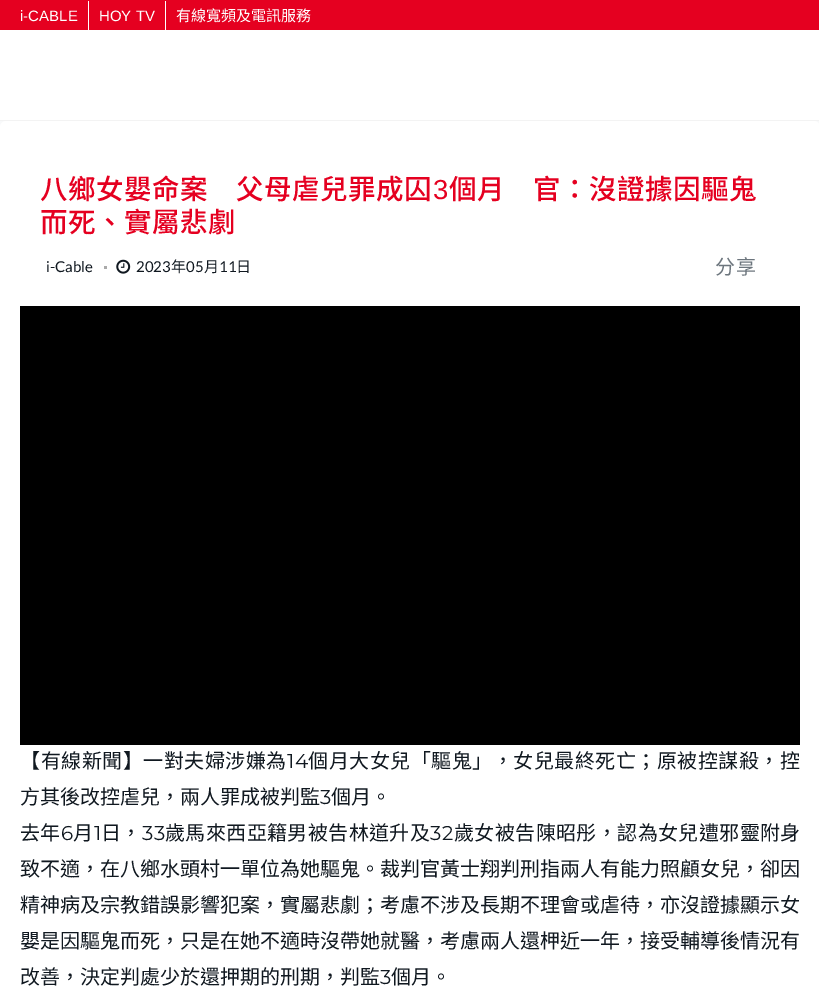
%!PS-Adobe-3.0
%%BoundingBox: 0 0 819 1002
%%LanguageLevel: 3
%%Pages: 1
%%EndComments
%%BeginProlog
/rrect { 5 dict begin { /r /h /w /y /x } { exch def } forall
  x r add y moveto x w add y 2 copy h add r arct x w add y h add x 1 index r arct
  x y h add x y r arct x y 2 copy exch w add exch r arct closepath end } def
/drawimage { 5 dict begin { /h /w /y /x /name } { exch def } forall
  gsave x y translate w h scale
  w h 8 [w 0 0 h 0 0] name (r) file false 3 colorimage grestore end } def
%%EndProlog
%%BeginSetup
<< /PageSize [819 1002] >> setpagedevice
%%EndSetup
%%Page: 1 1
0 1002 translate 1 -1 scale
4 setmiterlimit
1 setgray
0 0 819 1002 rectfill
0.953 setgray
0 120 819 1 rectfill
0.898 0 0.125 setrgbcolor
0 0 819 30 rectfill
1 setgray
88 1 1 29 rectfill
165 1 1 29 rectfill
0.973 0.976 0.98 setrgbcolor
0 121 819 6 rectfill
1 setgray
0 121 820 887 6 rrect fill
0.667 setgray
104 266 3 3 rectfill
(images/1.raw) 116 259 15 15 drawimage
0 setgray
20 306 780 439 rectfill
/LiberationSans-Regular [15 0 0 -15 0 0] selectfont
1 setgray
20 21 moveto (i-CABLE) show
99 21 moveto (HOY TV) show
/NotoSansCJKHK-Regular [15 0 0 -15 0 0] selectfont
176 21 moveto (有線寬頻及電訊服務) show
/NotoSansHK-Medium [27.5 0 0 -27.5 0 0] selectfont
0.898 0 0.125 setrgbcolor
40 199 moveto 0.5 0 (八鄉女嬰命案　父母虐兒罪成囚) ashow
/LiberationSans-Regular [27.5 0 0 -27.5 0 0] selectfont
433 199 moveto 0.5 0 (3) ashow
/NotoSansHK-Medium [27.5 0 0 -27.5 0 0] selectfont
449 199 moveto 0.5 0 (個月　官：沒證據因驅鬼) ashow
40 232 moveto 0.5 0 (而死、實屬悲劇) ashow
/Lato-Regular [15 0 0 -15 0 0] selectfont
0.063 0.094 0.125 setrgbcolor
46 272 moveto (i-Cable) show
136 272 moveto (2023) show
/NotoSansCJKHK-Regular [15 0 0 -15 0 0] selectfont
171 272 moveto (年) show
/Lato-Regular [15 0 0 -15 0 0] selectfont
186 272 moveto (05) show
/NotoSansCJKHK-Regular [15 0 0 -15 0 0] selectfont
204 272 moveto (月) show
/Lato-Regular [15 0 0 -15 0 0] selectfont
219 272 moveto (11) show
/NotoSansCJKHK-Regular [15 0 0 -15 0 0] selectfont
236 272 moveto (日) show
/NotoSansHK-Regular [20 0 0 -20 0 0] selectfont
0.424 0.459 0.49 setrgbcolor
715 274 moveto 1 0 (分享) ashow
/NotoSansCJKHK-Regular [20 0 0 -20 0 0] selectfont
0.063 0.094 0.125 setrgbcolor
20 768 moveto 0.5 0 (【有線新聞】一對夫婦涉嫌為) ashow
/Montserrat-Regular [20 0 0 -20 0 0] selectfont
287 768 moveto 0.5 0 (14) ashow
/NotoSansCJKHK-Regular [20 0 0 -20 0 0] selectfont
308 768 moveto 0.5 0 (個月大女兒「驅鬼」，女兒最終死亡；原被控謀殺，控) ashow
20 804 moveto (方其後改控虐兒，兩人罪成被判監) show
/Montserrat-Regular [20 0 0 -20 0 0] selectfont
320 804 moveto (3) show
/NotoSansCJKHK-Regular [20 0 0 -20 0 0] selectfont
331 804 moveto (個月。) show
20 840 moveto 0.4 0 (去年) ashow
/Montserrat-Regular [20 0 0 -20 0 0] selectfont
61 840 moveto 0.4 0 (6) ashow
/NotoSansCJKHK-Regular [20 0 0 -20 0 0] selectfont
73 840 moveto 0.4 0 (月) ashow
/Montserrat-Regular [20 0 0 -20 0 0] selectfont
94 840 moveto 0.4 0 (1) ashow
/NotoSansCJKHK-Regular [20 0 0 -20 0 0] selectfont
101 840 moveto 0.4 0 (日，) ashow
/Montserrat-Regular [20 0 0 -20 0 0] selectfont
142 840 moveto 0.4 0 (33) ashow
/NotoSansCJKHK-Regular [20 0 0 -20 0 0] selectfont
165 840 moveto 0.4 0 (歲馬來西亞籍男被告林道升及) ashow
/Montserrat-Regular [20 0 0 -20 0 0] selectfont
430 840 moveto 0.4 0 (32) ashow
/NotoSansCJKHK-Regular [20 0 0 -20 0 0] selectfont
454 840 moveto 0.4 0 (歲女被告陳昭彤，認為女兒遭邪靈附身) ashow
20 876 moveto (致不適，在八鄉水頭村一單位為她驅鬼。裁判官黃士翔判刑指兩人有能力照顧女兒，卻因) show
20 912 moveto (精神病及宗教錯誤影響犯案，實屬悲劇；考慮不涉及長期不理會或虐待，亦沒證據顯示女) show
20 948 moveto (嬰是因驅鬼而死，只是在她不適時沒帶她就醫，考慮兩人還柙近一年，接受輔導後情況有) show
20 984 moveto (改善，決定判處少於還押期的刑期，判監) show
/Montserrat-Regular [20 0 0 -20 0 0] selectfont
380 984 moveto (3) show
/NotoSansCJKHK-Regular [20 0 0 -20 0 0] selectfont
391 984 moveto (個月。) show
showpage
%%EOF
